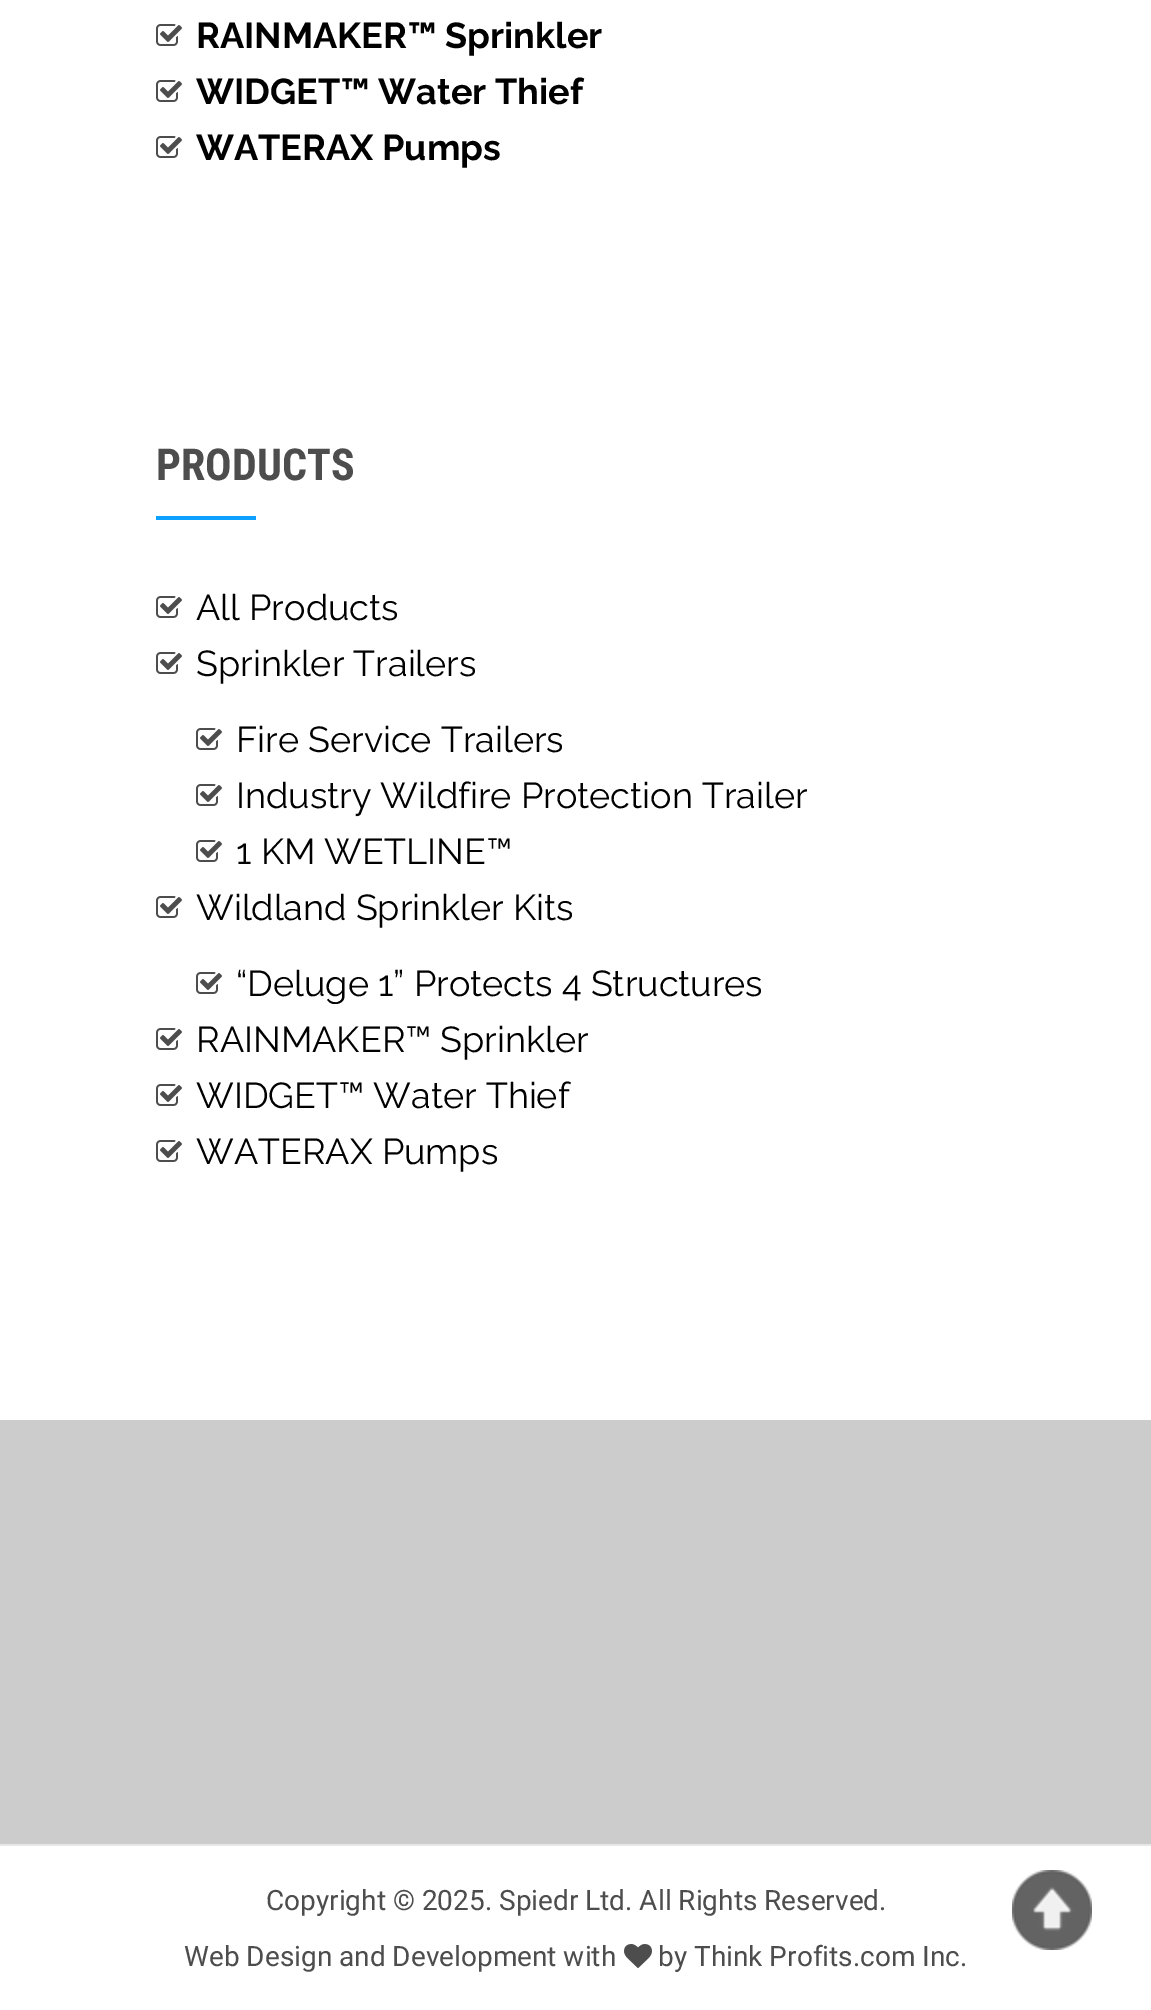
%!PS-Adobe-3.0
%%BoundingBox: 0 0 1151 2010
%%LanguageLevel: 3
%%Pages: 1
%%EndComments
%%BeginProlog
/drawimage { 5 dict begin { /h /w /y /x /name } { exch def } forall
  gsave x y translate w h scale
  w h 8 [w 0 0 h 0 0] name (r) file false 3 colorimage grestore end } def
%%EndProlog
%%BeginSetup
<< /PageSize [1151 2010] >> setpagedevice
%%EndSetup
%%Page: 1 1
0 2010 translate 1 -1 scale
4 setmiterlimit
1 setgray
0 0 1151 2010 rectfill
(images/1.raw) 156 24 26 22 drawimage
(images/1.raw) 156 80 26 22 drawimage
(images/1.raw) 156 136 26 22 drawimage
0.051 0.631 1 setrgbcolor
156 516 100 4 rectfill
(images/1.raw) 156 596 26 22 drawimage
(images/1.raw) 156 652 26 22 drawimage
(images/1.raw) 196 728 26 22 drawimage
(images/1.raw) 196 784 26 22 drawimage
(images/1.raw) 196 840 26 22 drawimage
(images/1.raw) 156 896 26 22 drawimage
(images/1.raw) 196 972 26 22 drawimage
(images/1.raw) 156 1028 26 22 drawimage
(images/1.raw) 156 1084 26 22 drawimage
(images/1.raw) 156 1140 26 22 drawimage
0.8 setgray
0 1420 1151 424 rectfill
0.906 setgray
0 1844 1151 2 rectfill
(images/2.raw) 624 1944 28 24 drawimage
(images/3.raw) 1012 1870 80 80 drawimage
/Raleway-Bold [36 0 0 -36 0 0] selectfont
0 setgray
196 48 moveto (RAINMAKER™ Sprinkler) show
196 104 moveto (WIDGET™ Water Thief) show
196 160 moveto (WATERAX Pumps) show
/RobotoCondensed-Bold [44 0 0 -44 0 0] selectfont
0.302 setgray
156 480 moveto (PRODUCTS) show
/Raleway-Regular [36 0 0 -36 0 0] selectfont
0 setgray
196 620 moveto (All Products) show
196 676 moveto (Sprinkler Trailers) show
236 752 moveto (Fire Service Trailers) show
236 808 moveto (Industry Wildfire Protection Trailer) show
236 864 moveto (1 KM WETLINE™) show
196 920 moveto (Wildland Sprinkler Kits) show
236 996 moveto (“Deluge 1” Protects 4 Structures) show
196 1052 moveto (RAINMAKER™ Sprinkler) show
196 1108 moveto (WIDGET™ Water Thief) show
196 1164 moveto (WATERAX Pumps) show
/Roboto-Regular [28 0 0 -28 0 0] selectfont
0.302 setgray
266 1910 moveto (Copyright © 2025. Spiedr Ltd. All Rights Reserved.) show
184 1966 moveto (Web Design and Development with) show
658 1966 moveto (by Think Profits.com Inc.) show
showpage
%%EOF
